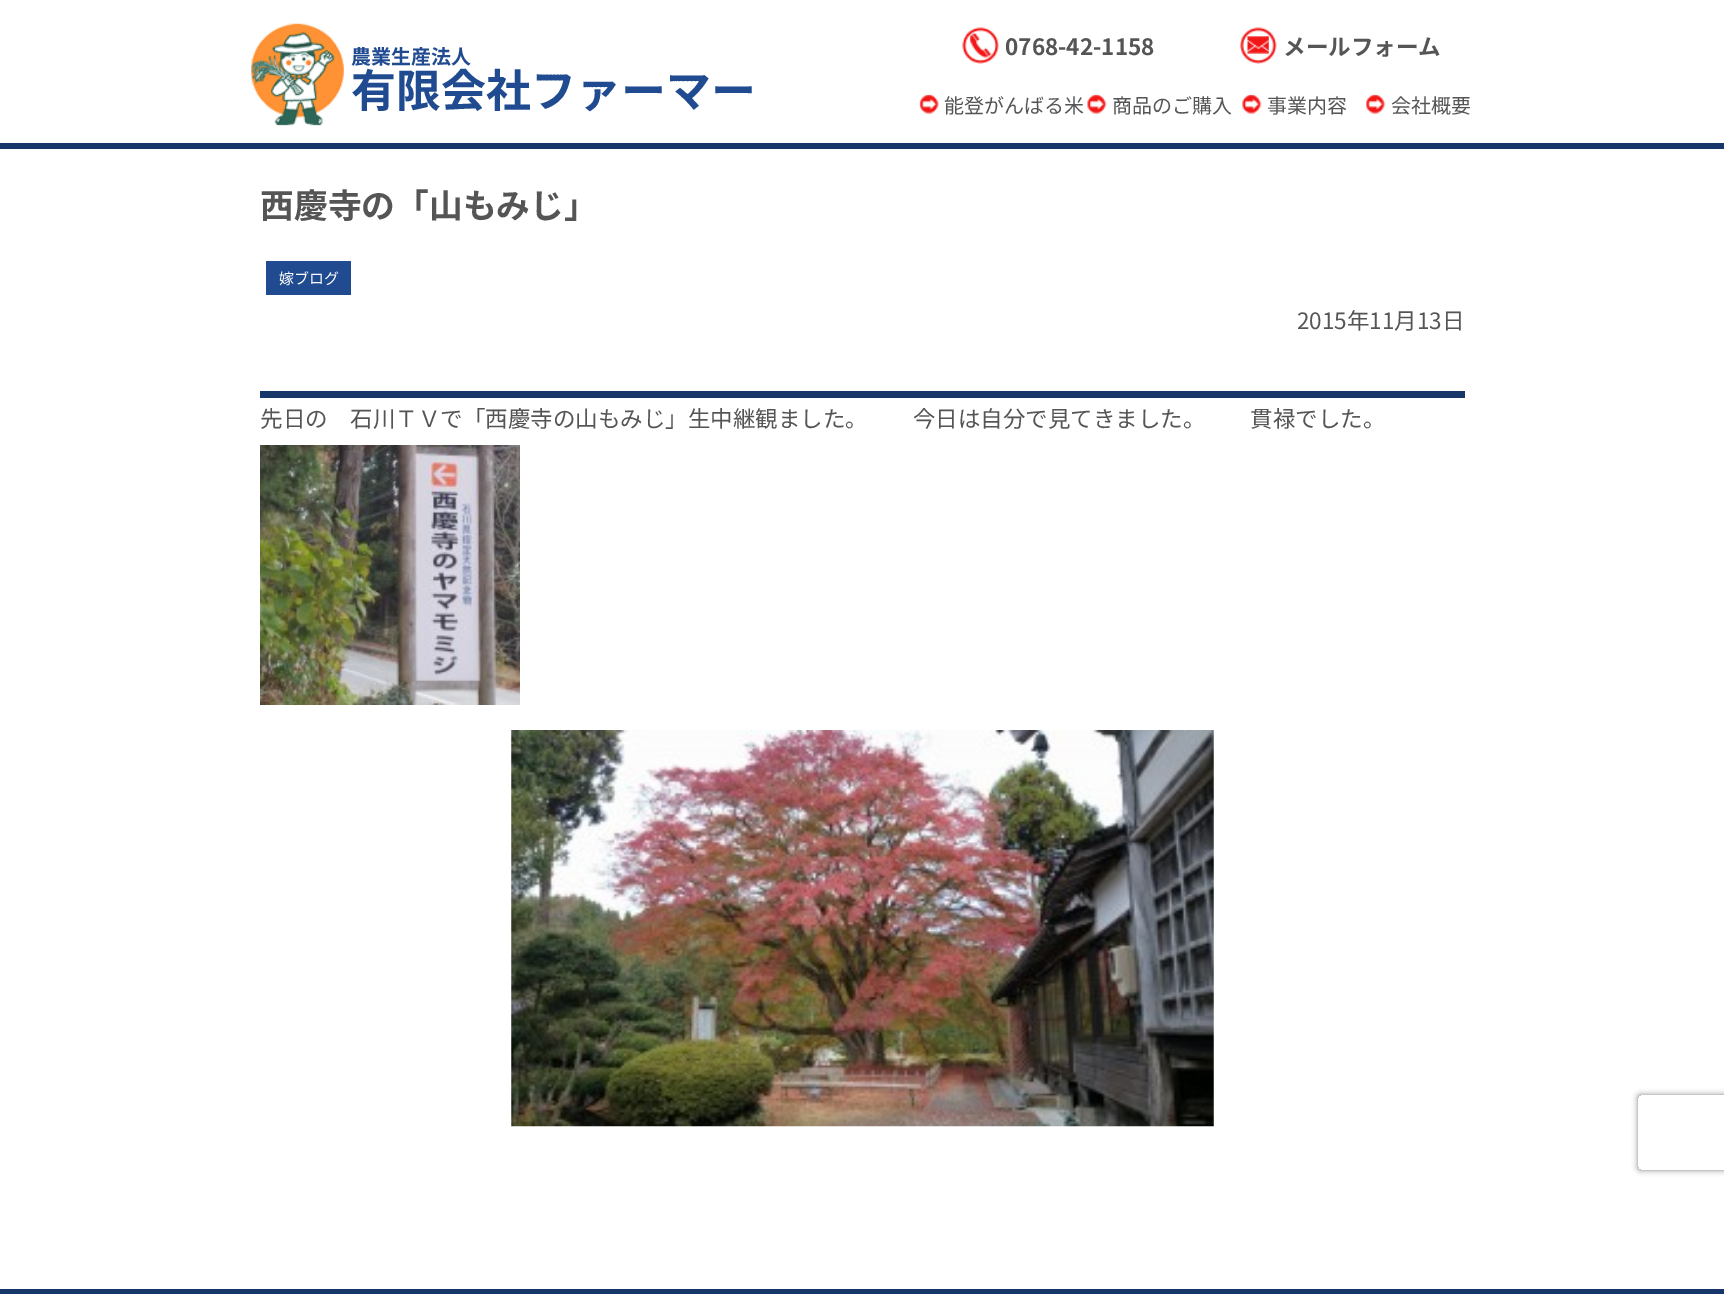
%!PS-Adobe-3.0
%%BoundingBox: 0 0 1724 1294
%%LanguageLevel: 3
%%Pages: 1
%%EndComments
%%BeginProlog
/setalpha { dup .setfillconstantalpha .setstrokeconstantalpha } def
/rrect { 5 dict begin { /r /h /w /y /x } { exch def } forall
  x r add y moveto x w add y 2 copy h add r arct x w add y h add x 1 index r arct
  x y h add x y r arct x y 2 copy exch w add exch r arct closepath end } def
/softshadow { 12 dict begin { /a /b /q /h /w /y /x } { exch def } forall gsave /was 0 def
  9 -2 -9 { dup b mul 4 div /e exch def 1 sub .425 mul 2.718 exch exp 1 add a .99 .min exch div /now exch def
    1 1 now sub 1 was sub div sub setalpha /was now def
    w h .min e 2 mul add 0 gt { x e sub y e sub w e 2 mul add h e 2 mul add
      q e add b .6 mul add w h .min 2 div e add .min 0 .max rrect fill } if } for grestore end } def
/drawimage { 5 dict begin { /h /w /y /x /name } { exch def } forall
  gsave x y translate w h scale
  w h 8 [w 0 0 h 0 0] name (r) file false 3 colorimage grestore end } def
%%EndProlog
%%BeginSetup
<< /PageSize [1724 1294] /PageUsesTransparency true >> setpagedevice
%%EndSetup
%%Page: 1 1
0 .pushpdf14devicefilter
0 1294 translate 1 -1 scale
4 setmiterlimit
1 setgray
0 0 1724 1294 rectfill
0.09 0.212 0.416 setrgbcolor
0 143 1724 6 rectfill
(images/1.raw) 251 23 93 103 drawimage
(images/2.raw) 962 27 37 37 drawimage
(images/3.raw) 1239 27 38 37 drawimage
(images/4.raw) 919 94 20 20 drawimage
(images/5.raw) 1087 94 20 20 drawimage
(images/5.raw) 1242 94 20 20 drawimage
(images/6.raw) 1366 94 20 20 drawimage
260 391 1205 7 rectfill
0.129 0.294 0.565 setrgbcolor
266 261 85 34 rectfill
(images/7.raw) 260 445 260 260 drawimage
(images/8.raw) 511 730 703 397 drawimage
0.09 0.212 0.416 setrgbcolor
0 1289 1724 5 rectfill
gsave
newpath 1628 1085 moveto 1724 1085 lineto 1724 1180 lineto 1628 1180 lineto closepath 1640.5 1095 moveto 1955.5 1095 lineto 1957 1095 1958 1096 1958 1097.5 curveto 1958 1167.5 lineto 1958 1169 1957 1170 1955.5 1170 curveto 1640.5 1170 lineto 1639 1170 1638 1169 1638 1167.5 curveto 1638 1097.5 lineto 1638 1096 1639 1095 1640.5 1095 curveto closepath eoclip newpath
0.502 setgray
1638 1095 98 75 2.5 3 1 softshadow
grestore
/NotoSansJP-Bold [20 0 0 -20 0 0] selectfont
0.129 0.294 0.565 setrgbcolor
351 64 moveto (農業生産法人) show
/NotoSansJP-Bold [45 0 0 -45 0 0] selectfont
351 107 moveto (有限会社ファーマー) show
/NotoSansJP-Bold [22.5 0 0 -22.5 0 0] selectfont
0.333 setgray
1005 55 moveto (0768-42-1158) show
1283 55 moveto (メールフォーム) show
/NotoSansJP-Regular [20 0 0 -20 0 0] selectfont
944 113 moveto (能登がんばる米) show
1112 113 moveto (商品のご購入) show
1267 113 moveto (事業内容) show
1391 113 moveto (会社概要) show
/NotoSansJP-Bold [33.75 0 0 -33.75 0 0] selectfont
260 218 moveto (西慶寺の「山もみじ」) show
/NotoSansJP-Regular [15 0 0 -15 0 0] selectfont
1 setgray
279 284 moveto (嫁ブログ) show
/NotoSansJP-Regular [22.5 0 0 -22.5 0 0] selectfont
0.333 setgray
1297 329 moveto (2015年11月13日) show
260 427 moveto (先日の　石川ＴＶで「西慶寺の山もみじ」生中継観ました。　　今日は自分で見てきました。　　貫禄でした。) show
.poppdf14devicefilter showpage
%%EOF
